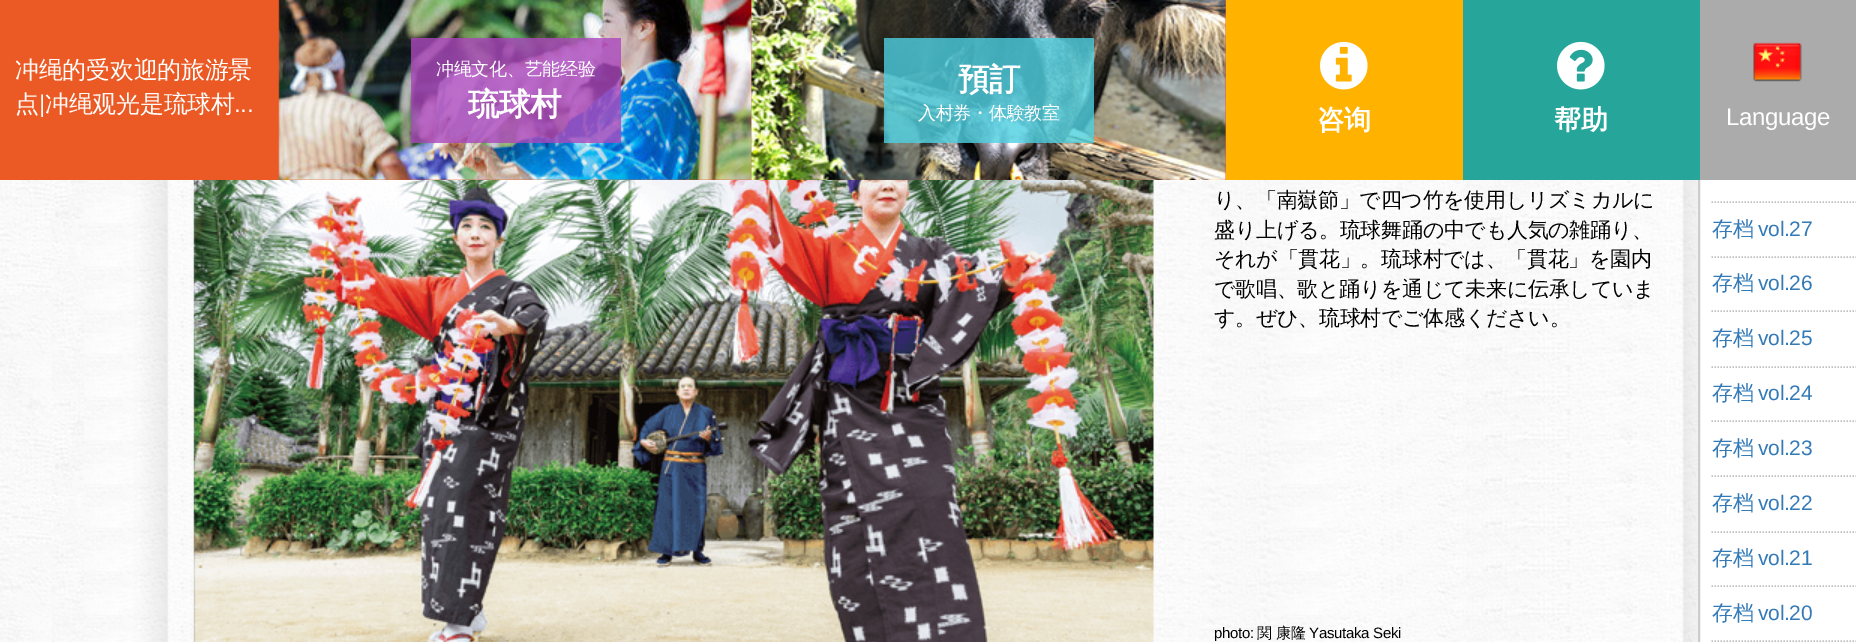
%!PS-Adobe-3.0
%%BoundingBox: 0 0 1856 642
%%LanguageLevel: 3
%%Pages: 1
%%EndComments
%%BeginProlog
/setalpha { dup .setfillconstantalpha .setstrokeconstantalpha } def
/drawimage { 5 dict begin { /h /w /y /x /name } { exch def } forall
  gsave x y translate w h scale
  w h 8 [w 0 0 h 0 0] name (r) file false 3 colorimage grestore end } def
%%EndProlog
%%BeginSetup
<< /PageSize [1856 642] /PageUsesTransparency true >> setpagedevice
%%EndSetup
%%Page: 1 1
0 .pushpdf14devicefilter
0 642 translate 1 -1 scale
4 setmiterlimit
1 setgray
0 0 1856 642 rectfill
(images/1.raw) 0 180 84 462 drawimage
0.922 0.353 0.141 setrgbcolor
0 0 1226 180 rectfill
(images/2.raw) 278 0 475 180 drawimage
0.8 setalpha
0.671 0.278 0.737 setrgbcolor
411 38 210 105 rectfill
1 setalpha
(images/3.raw) 751 0 475 180 drawimage
0.8 setalpha
0.302 0.816 0.882 setrgbcolor
884 38 210 105 rectfill
1 setalpha
1 0.702 0 setrgbcolor
1226 0 237 180 rectfill
(images/4.raw) 1320 41 48 49 drawimage
0.8 setgray
2 setlinewidth
1699 -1 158 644 rectstroke
0.149 0.651 0.604 setrgbcolor
1463 0 237 180 rectfill
(images/5.raw) 1557 41 48 49 drawimage
0.671 setgray
1700 0 156 180 rectfill
(images/6.raw) 1753 42 49 40 drawimage
(images/7.raw) 84 180 1614 462 drawimage
(images/8.raw) 193 180 961 462 drawimage
0.753 setgray
1.5 setlinewidth
[1.5 1.5] 0 setdash
newpath 1711.5 202 moveto 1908 202 lineto stroke
newpath 1711.5 257 moveto 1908 257 lineto stroke
newpath 1711.5 311 moveto 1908 311 lineto stroke
newpath 1711.5 367 moveto 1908 367 lineto stroke
newpath 1711.5 421 moveto 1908 421 lineto stroke
newpath 1711.5 476 moveto 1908 476 lineto stroke
newpath 1711.5 532 moveto 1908 532 lineto stroke
newpath 1711.5 586 moveto 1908 586 lineto stroke
newpath 1711.5 641 moveto 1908 641 lineto stroke
/WenQuanYiZenHei-Medium [24 0 0 -24 0 0] selectfont
1 setgray
15 78 moveto -0.3 0 (冲绳的受欢迎的旅游景) ashow
15 112 moveto -0.3 0 (点) ashow
/LiberationSans-Regular [24 0 0 -24 0 0] selectfont
39 112 moveto -0.3 0 (|) ashow
/WenQuanYiZenHei-Medium [24 0 0 -24 0 0] selectfont
45 112 moveto -0.3 0 (冲绳观光是琉球村) ashow
/LiberationSans-Regular [24 0 0 -24 0 0] selectfont
234 112 moveto -0.3 0 (...) ashow
/WenQuanYiZenHei-Medium [18 0 0 -18 0 0] selectfont
436 75 moveto -0.3 0 (冲绳文化、艺能经验) ashow
/WenQuanYiZenHei-Bold [31.5 0 0 -31.5 0 0] selectfont
468 115 moveto -0.3 0 (琉球村) ashow
958 90 moveto -0.3 0 (預訂) ashow
/WenQuanYiZenHei-Medium [18 0 0 -18 0 0] selectfont
918 119 moveto -0.3 0 (入村券・体験教室) ashow
/WenQuanYiZenHei-Bold [27 0 0 -27 0 0] selectfont
1317 129 moveto -0.3 0 (咨询) ashow
1554 129 moveto -0.3 0 (帮助) ashow
/LiberationSans-Regular [24 0 0 -24 0 0] selectfont
1726 125 moveto -0.3 0 (Language) ashow
/WenQuanYiZenHei-Medium [21 0 0 -21 0 0] selectfont
0 setgray
1214 207 moveto -0.3 0 (り、「南嶽節」で四つ竹を使用しリズミカルに) ashow
1214 237 moveto -0.3 0 (盛り上げる。琉球舞踊の中でも人気の雑踊り、) ashow
1214 266 moveto -0.3 0 (それが「貫花」。琉球村では、「貫花」を園内) ashow
1214 296 moveto -0.3 0 (で歌唱、歌と踊りを通じて未来に伝承していま) ashow
1214 325 moveto -0.3 0 (す。ぜひ、琉球村でご体感ください。) ashow
/LiberationSans-Regular [15 0 0 -15 0 0] selectfont
1214 638 moveto -0.3 0 (photo:) ashow
/WenQuanYiZenHei-Medium [15 0 0 -15 0 0] selectfont
1257 638 moveto -0.3 0 (関) ashow
1276 638 moveto -0.3 0 (康隆) ashow
/LiberationSans-Regular [15 0 0 -15 0 0] selectfont
1309 638 moveto -0.3 0 (Yasutaka Seki) ashow
/WenQuanYiZenHei-Medium [21 0 0 -21 0 0] selectfont
0.2 0.478 0.718 setrgbcolor
1712 236 moveto -0.3 0 (存档) ashow
/LiberationSans-Regular [21 0 0 -21 0 0] selectfont
1758 236 moveto -0.3 0 (vol.27) ashow
/WenQuanYiZenHei-Medium [21 0 0 -21 0 0] selectfont
1712 290 moveto -0.3 0 (存档) ashow
/LiberationSans-Regular [21 0 0 -21 0 0] selectfont
1758 290 moveto -0.3 0 (vol.26) ashow
/WenQuanYiZenHei-Medium [21 0 0 -21 0 0] selectfont
1712 345 moveto -0.3 0 (存档) ashow
/LiberationSans-Regular [21 0 0 -21 0 0] selectfont
1758 345 moveto -0.3 0 (vol.25) ashow
/WenQuanYiZenHei-Medium [21 0 0 -21 0 0] selectfont
1712 400 moveto -0.3 0 (存档) ashow
/LiberationSans-Regular [21 0 0 -21 0 0] selectfont
1758 400 moveto -0.3 0 (vol.24) ashow
/WenQuanYiZenHei-Medium [21 0 0 -21 0 0] selectfont
1712 455 moveto -0.3 0 (存档) ashow
/LiberationSans-Regular [21 0 0 -21 0 0] selectfont
1758 455 moveto -0.3 0 (vol.23) ashow
/WenQuanYiZenHei-Medium [21 0 0 -21 0 0] selectfont
1712 510 moveto -0.3 0 (存档) ashow
/LiberationSans-Regular [21 0 0 -21 0 0] selectfont
1758 510 moveto -0.3 0 (vol.22) ashow
/WenQuanYiZenHei-Medium [21 0 0 -21 0 0] selectfont
1712 565 moveto -0.3 0 (存档) ashow
/LiberationSans-Regular [21 0 0 -21 0 0] selectfont
1758 565 moveto -0.3 0 (vol.21) ashow
/WenQuanYiZenHei-Medium [21 0 0 -21 0 0] selectfont
1712 620 moveto -0.3 0 (存档) ashow
/LiberationSans-Regular [21 0 0 -21 0 0] selectfont
1758 620 moveto -0.3 0 (vol.20) ashow
.poppdf14devicefilter showpage
%%EOF
